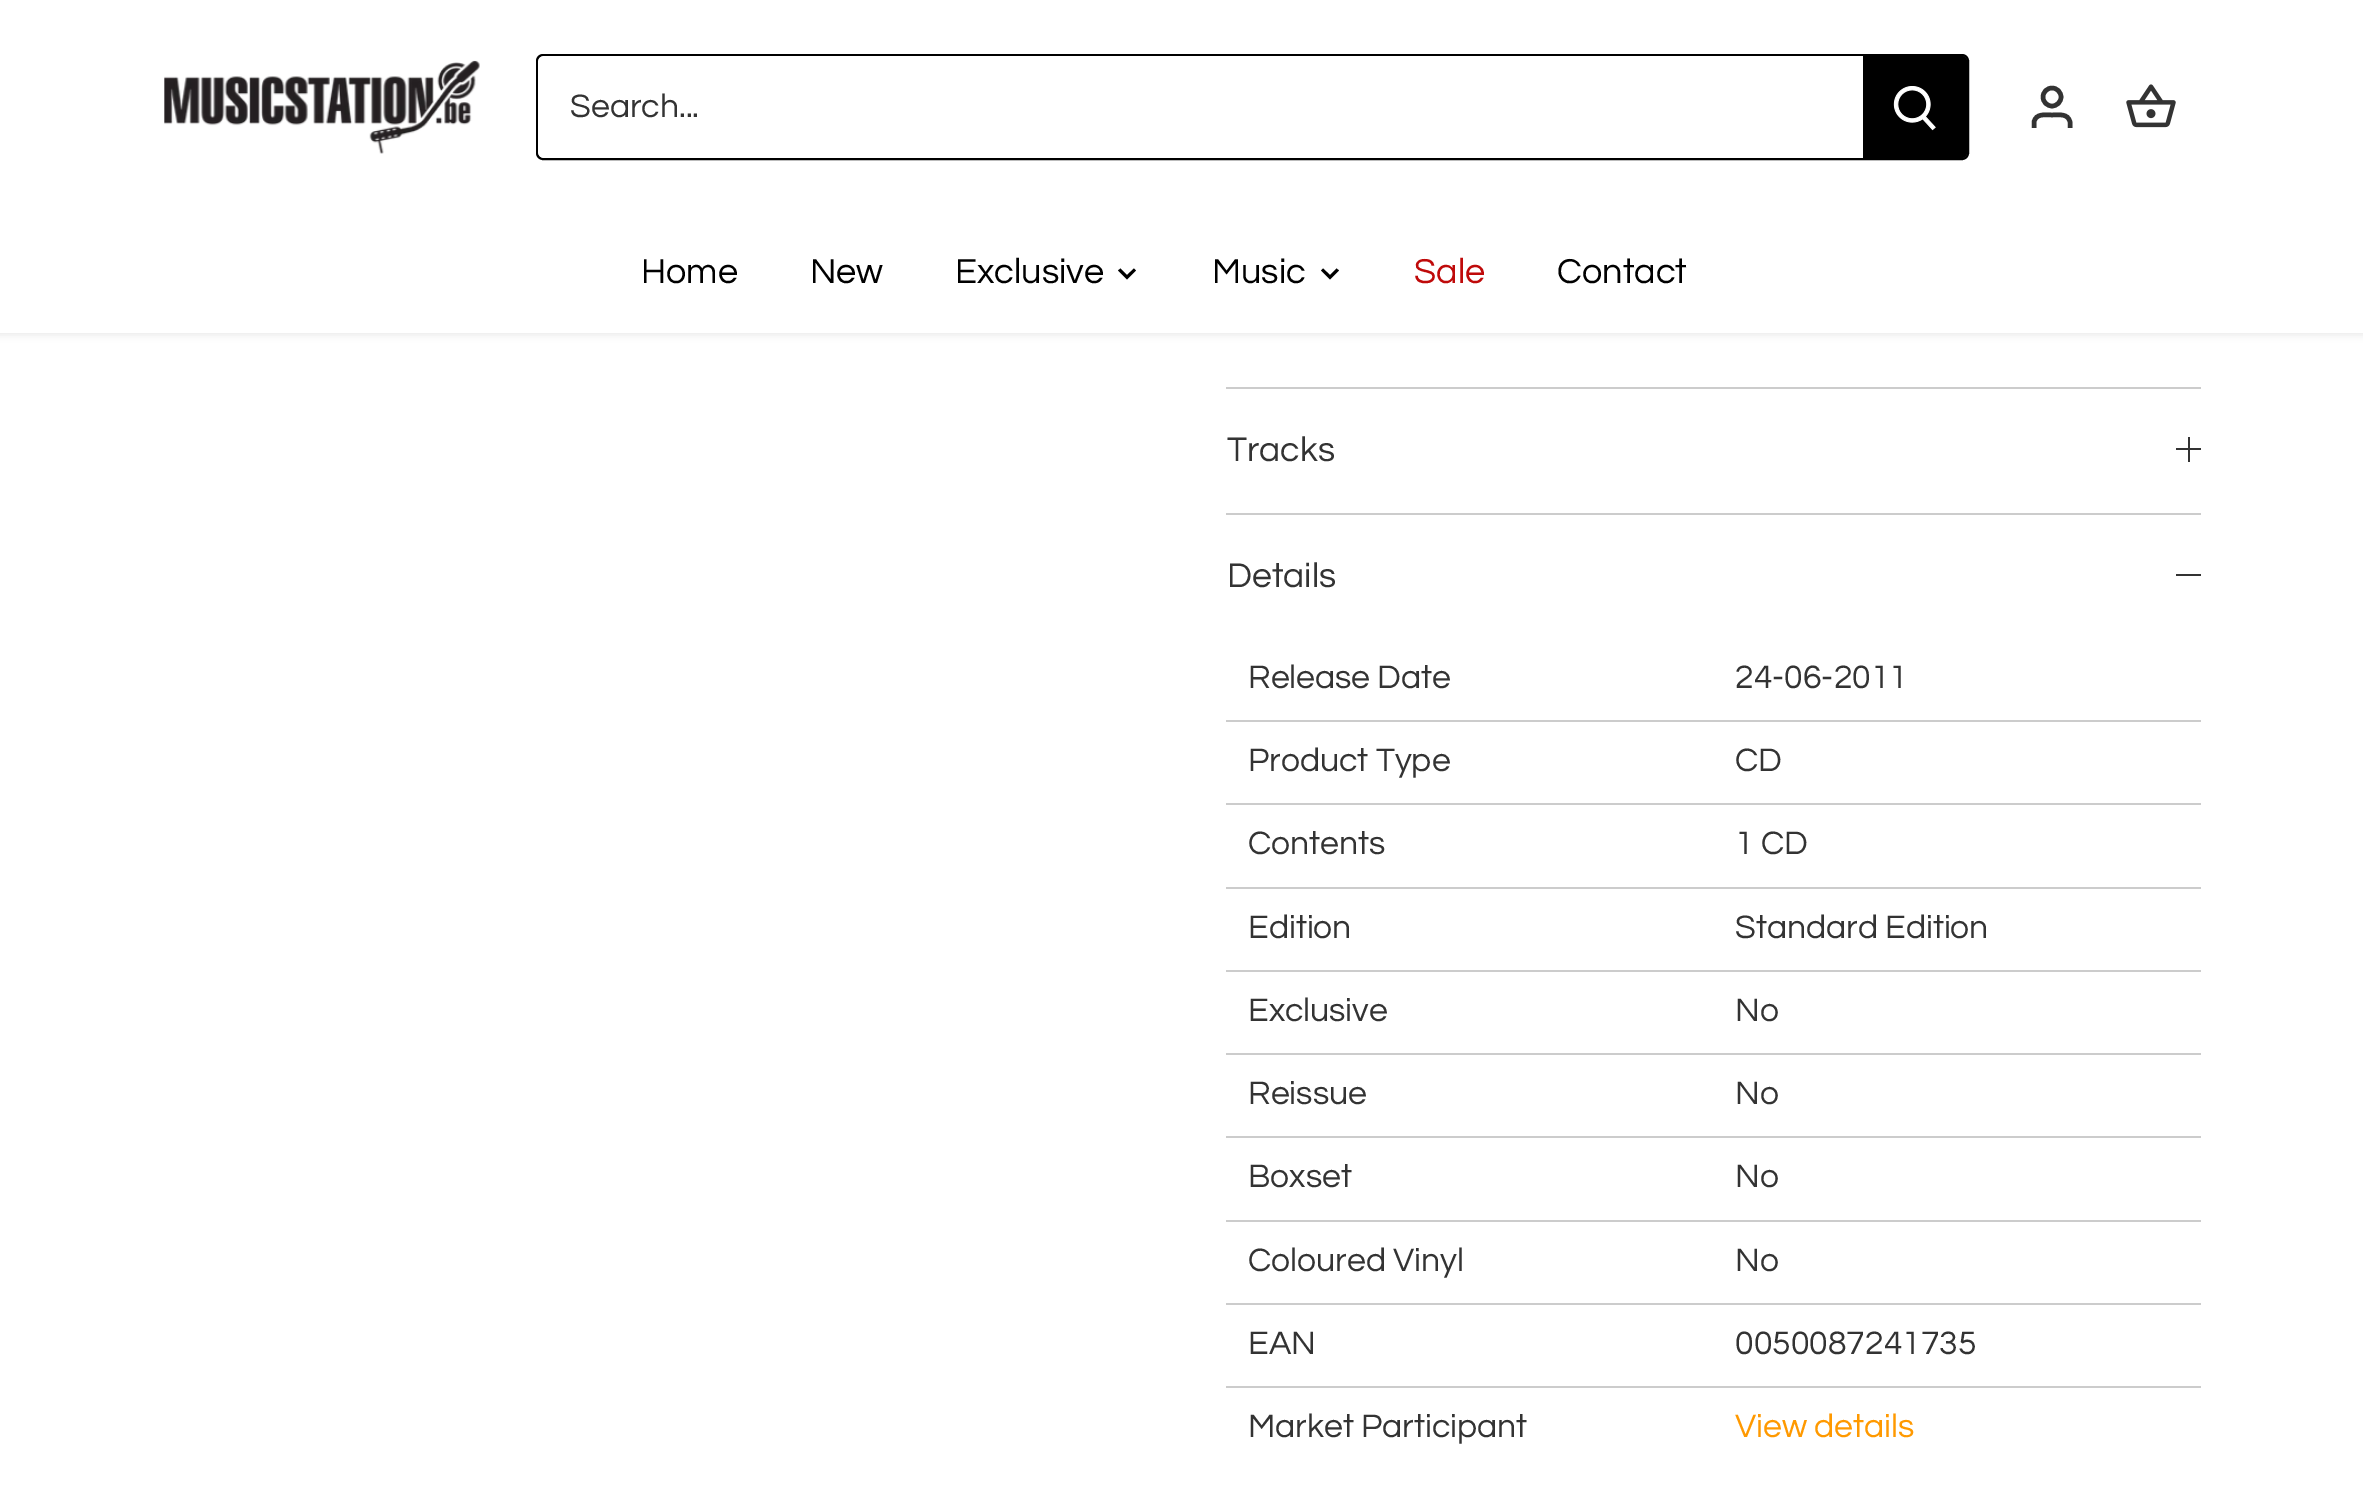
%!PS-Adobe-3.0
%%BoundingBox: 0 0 2363 1491
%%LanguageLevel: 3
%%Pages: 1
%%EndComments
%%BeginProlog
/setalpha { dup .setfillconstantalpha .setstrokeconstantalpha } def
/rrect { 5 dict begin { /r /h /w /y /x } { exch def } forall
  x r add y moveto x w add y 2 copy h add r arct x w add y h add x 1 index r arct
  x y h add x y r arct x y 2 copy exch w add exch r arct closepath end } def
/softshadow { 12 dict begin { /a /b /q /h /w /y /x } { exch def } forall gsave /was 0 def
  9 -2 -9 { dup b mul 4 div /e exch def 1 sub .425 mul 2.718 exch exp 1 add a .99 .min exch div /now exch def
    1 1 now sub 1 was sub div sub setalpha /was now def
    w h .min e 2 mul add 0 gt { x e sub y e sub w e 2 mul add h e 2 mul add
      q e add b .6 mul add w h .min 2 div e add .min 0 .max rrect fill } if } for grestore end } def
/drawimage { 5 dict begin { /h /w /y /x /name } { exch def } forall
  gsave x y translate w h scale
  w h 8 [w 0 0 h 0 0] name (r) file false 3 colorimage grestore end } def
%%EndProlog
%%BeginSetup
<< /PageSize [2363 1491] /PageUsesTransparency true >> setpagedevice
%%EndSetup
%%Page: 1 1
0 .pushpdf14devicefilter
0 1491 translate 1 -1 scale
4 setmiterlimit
1 setgray
0 0 2363 1491 rectfill
0 setgray
-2 -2 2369 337 0 3.5 0.08 softshadow
1 setgray
0 0 2363 333 rectfill
(images/1.raw) 164 60 316 94 drawimage
0 setgray
2 setlinewidth
537 55 1431 104 6 rrect stroke
1 setgray
newpath 545 56 moveto 1865 56 lineto 1865 158 lineto 545 158 lineto 541 158 538 155 538 151 curveto 538 63 lineto 538 59 541 56 545 56 curveto closepath fill
0 setgray
newpath 1863 56 moveto 1962 56 lineto 1965 56 1967 58 1967 61 curveto 1967 153 lineto 1967 156 1965 158 1962 158 curveto 1863 158 lineto closepath fill
(images/2.raw) 1893 86 43 45 drawimage
0.2 setgray
4.5 setlinewidth
newpath 2052 97 9 0 360 arc closepath stroke
newpath 2070 128 moveto 2070 122 lineto 2068 113 2058.5 115 2052 115 curveto 2045.5 115 2036 113 2034 122 curveto 2034 128 lineto stroke
(images/3.raw) 2126 84 50 44 drawimage
0 setgray
newpath 1120.5 268.5 moveto 1127 275 lineto 1134 268.5 lineto 1136 270.5 lineto 1127 279.5 lineto 1118 270.5 lineto closepath fill
newpath 1323 268.5 moveto 1330 275 lineto 1336.5 268.5 lineto 1339 270.5 lineto 1330 279.5 lineto 1321 270.5 lineto closepath fill
0.8 setgray
1226 387 975 2 rectfill
1226 513 975 2 rectfill
0.2 setgray
2188 437 2 25 rectfill
2176 448 25 2 rectfill
2176 574 25 2 rectfill
0.8 setgray
1226 720 975 2 rectfill
1226 803 975 2 rectfill
1226 887 975 2 rectfill
1226 970 975 2 rectfill
1226 1053 975 2 rectfill
1226 1136 975 2 rectfill
1226 1220 975 2 rectfill
1226 1303 975 2 rectfill
1226 1386 975 2 rectfill
/Questrial-Regular [33.75 0 0 -33.75 0 0] selectfont
0.2 setgray
570 117 moveto (Search...) show
/Questrial-Regular [36 0 0 -36 0 0] selectfont
0 setgray
641 283 moveto (Home) show
810 283 moveto (New) show
955 283 moveto (Exclusive) show
1212 283 moveto (Music) show
0.749 0.039 0.039 setrgbcolor
1414 283 moveto (Sale) show
0 setgray
1557 283 moveto (Contact) show
/Questrial-Regular [35.5 0 0 -35.5 0 0] selectfont
0.2 setgray
1227 461 moveto (Tracks) show
1227 587 moveto (Details) show
/Questrial-Regular [33.75 0 0 -33.75 0 0] selectfont
1248 688 moveto (Release Date) show
1735 688 moveto (24-06-2011) show
1248 771 moveto (Product Type) show
1735 771 moveto (CD) show
1248 854 moveto (Contents) show
1735 854 moveto (1 CD) show
1248 938 moveto (Edition) show
1735 938 moveto (Standard Edition) show
1248 1021 moveto (Exclusive) show
1735 1021 moveto (No) show
1248 1104 moveto (Reissue) show
1735 1104 moveto (No) show
1248 1187 moveto (Boxset) show
1735 1187 moveto (No) show
1248 1271 moveto (Coloured Vinyl) show
1735 1271 moveto (No) show
1248 1354 moveto (EAN) show
1735 1354 moveto (0050087241735) show
1248 1437 moveto (Market Participant) show
1 0.6 0 setrgbcolor
1735 1437 moveto (View details) show
.poppdf14devicefilter showpage
%%EOF
